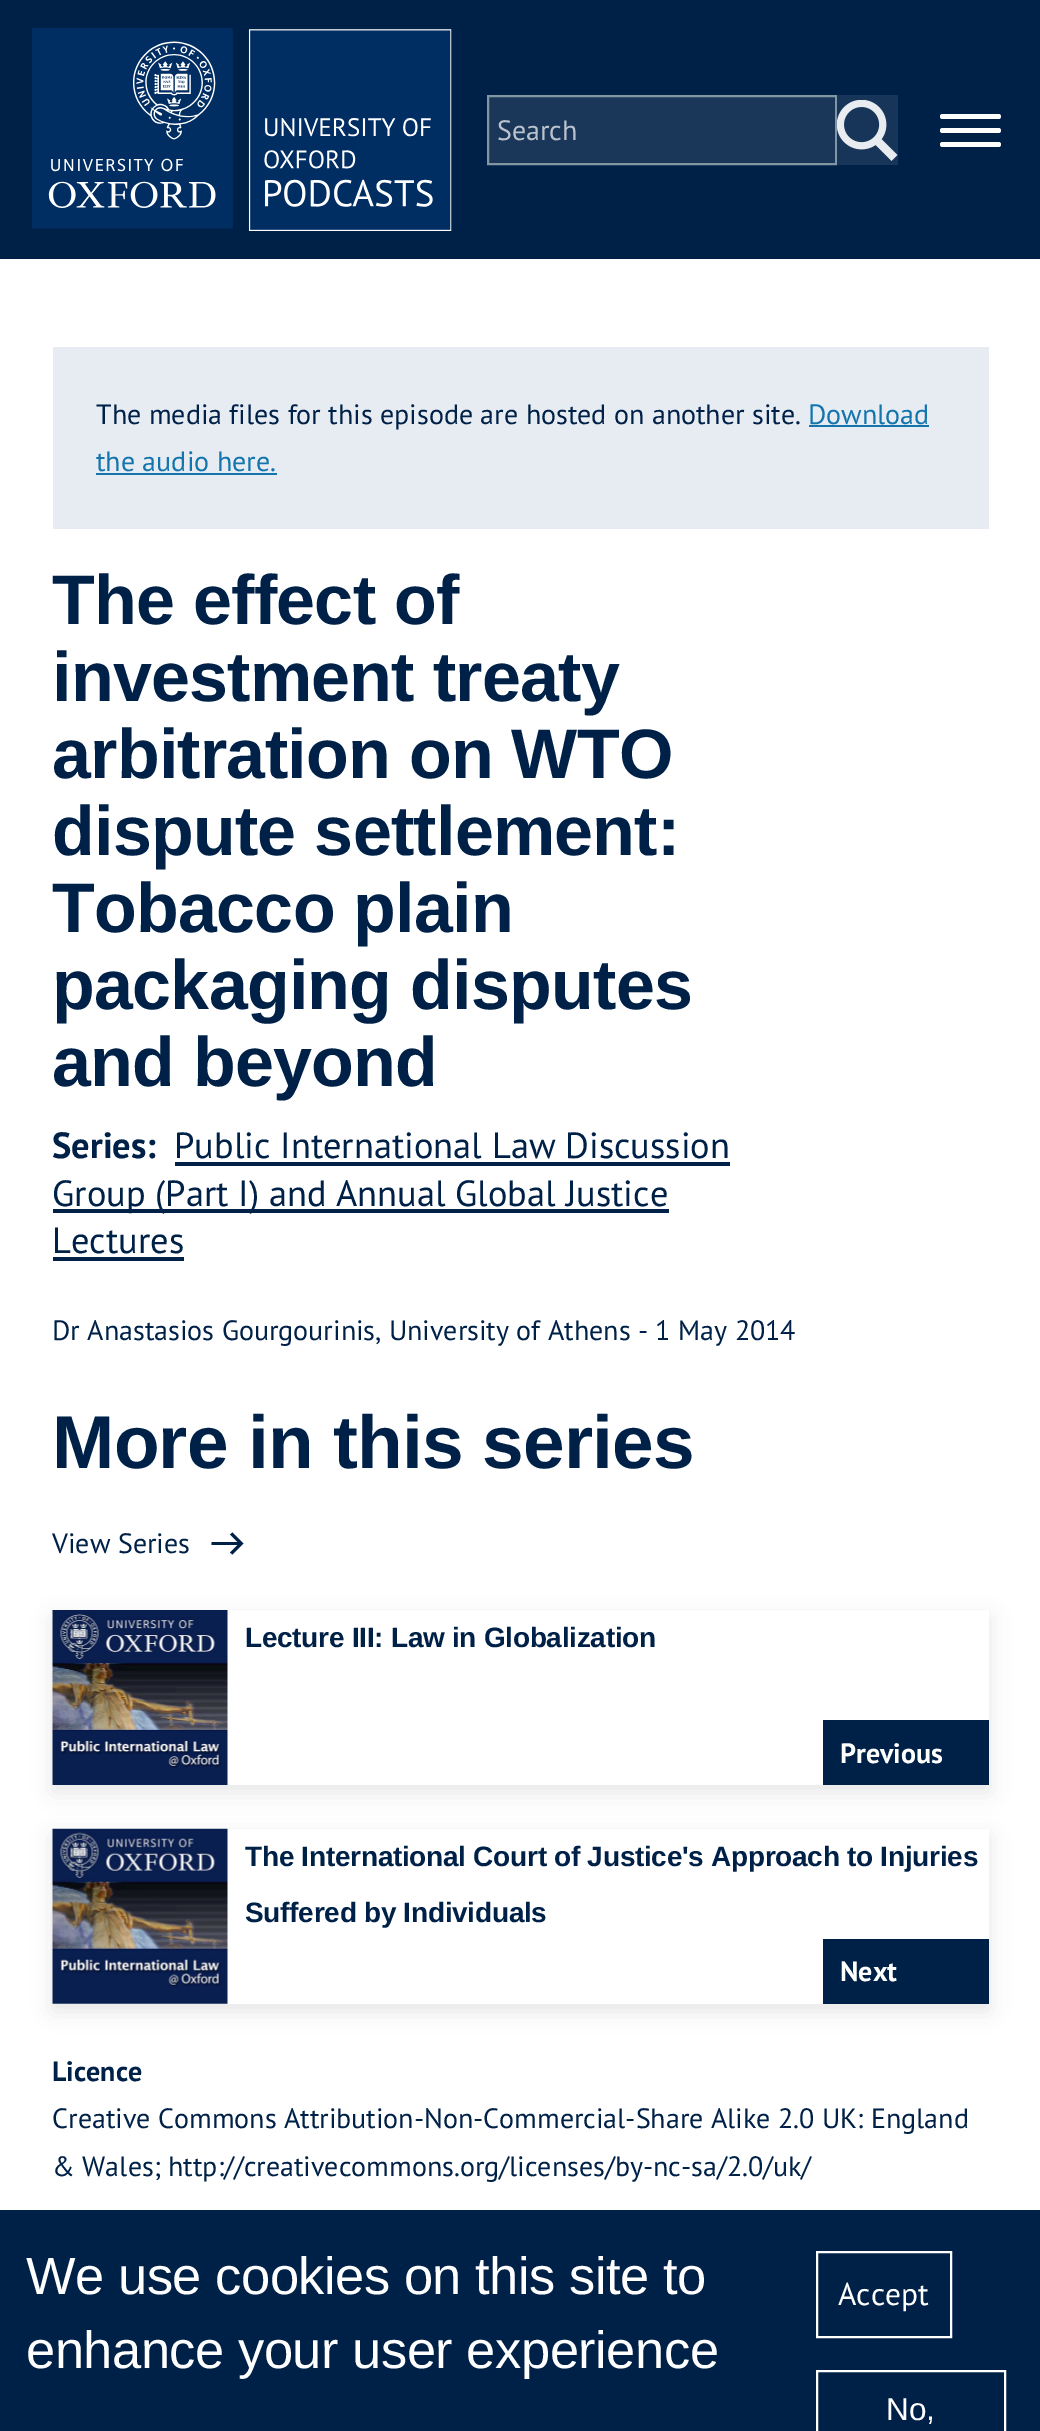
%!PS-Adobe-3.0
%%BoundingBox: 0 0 1040 2431
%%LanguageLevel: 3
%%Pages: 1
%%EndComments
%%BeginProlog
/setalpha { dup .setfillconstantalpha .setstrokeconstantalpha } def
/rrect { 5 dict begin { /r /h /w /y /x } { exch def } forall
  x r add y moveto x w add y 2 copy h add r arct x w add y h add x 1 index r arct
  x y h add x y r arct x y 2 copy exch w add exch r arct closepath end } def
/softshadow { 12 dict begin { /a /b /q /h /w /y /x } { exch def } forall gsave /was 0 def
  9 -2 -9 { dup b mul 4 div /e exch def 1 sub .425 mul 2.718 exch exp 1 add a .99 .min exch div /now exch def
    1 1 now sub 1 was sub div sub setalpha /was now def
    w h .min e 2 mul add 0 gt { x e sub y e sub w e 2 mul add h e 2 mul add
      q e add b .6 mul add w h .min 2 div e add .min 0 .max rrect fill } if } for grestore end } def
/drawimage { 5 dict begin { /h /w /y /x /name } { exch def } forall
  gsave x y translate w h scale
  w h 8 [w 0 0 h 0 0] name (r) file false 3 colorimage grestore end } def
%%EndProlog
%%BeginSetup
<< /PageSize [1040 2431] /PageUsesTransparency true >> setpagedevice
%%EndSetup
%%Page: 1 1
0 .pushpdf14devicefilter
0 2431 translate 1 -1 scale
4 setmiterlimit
1 setgray
0 0 1040 2431 rectfill
0 0.129 0.278 setrgbcolor
0 0 1040 259 rectfill
(images/1.raw) 32 28 420 203 drawimage
0.102 0.216 0.349 setrgbcolor
newpath 488 96 moveto 836 96 lineto 836 164 lineto 488 164 lineto closepath gsave fill grestore
0.506 0.588 0.635 setrgbcolor
2 setlinewidth
stroke
0.09 0.208 0.345 setrgbcolor
837 95 61 70 rectfill
(images/2.raw) 837 100 61 61 drawimage
1 setgray
940 128 61 5 2.5 rrect fill
940 114 61 5 2.5 rrect fill
940 142 61 5 2.5 rrect fill
0.906 0.925 0.953 setrgbcolor
53 347 936 182 rectfill
0.078 0.459 0.678 setrgbcolor
809 425 120 2 rectfill
96 473 181 2 rectfill
0 0.129 0.278 setrgbcolor
175 1162 555 4 rectfill
53 1209 616 4 rectfill
53 1257 131 4 rectfill
newpath 232.5 1532.5 moveto 230 1534.5 lineto 237.5 1542 lineto 211.5 1542 lineto 211.5 1545 lineto 237.5 1545 lineto 230 1552.5 lineto 232.5 1554.5 lineto 243.5 1543.5 lineto closepath fill
gsave
newpath 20 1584 moveto 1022 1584 lineto 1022 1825 lineto 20 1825 lineto closepath 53 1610 moveto 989 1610 lineto 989 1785 lineto 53 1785 lineto closepath eoclip newpath
0 setgray
53 1617 936 175 0 10.5 0.1 softshadow
grestore
(images/3.raw) 52 1610 176 175 drawimage
823 1720 166 65 rectfill
gsave
newpath 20 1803 moveto 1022 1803 lineto 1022 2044 lineto 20 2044 lineto closepath 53 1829 moveto 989 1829 lineto 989 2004 lineto 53 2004 lineto closepath eoclip newpath
0 setgray
53 1836 936 175 0 10.5 0.1 softshadow
grestore
(images/4.raw) 52 1828 176 176 drawimage
823 1939 166 65 rectfill
0 2210 1040 221 rectfill
1 setgray
817 2252 134 85 rectstroke
817 2371 188 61 rectstroke
/PTSans-Regular [28 0 0 -28 0 0] selectfont
0.729 0.765 0.804 setrgbcolor
497 140 moveto (Search) show
0 0.129 0.278 setrgbcolor
96 424 moveto (The media files for this episode are hosted on another site.) show
0.078 0.459 0.678 setrgbcolor
808 424 moveto (Download) show
96 471 moveto (the audio here.) show
/LiberationSans-Bold [70 0 0 -70 0 0] selectfont
0 0.129 0.278 setrgbcolor
52 624 moveto -0.75 0 (The effect of) ashow
52 701 moveto -0.75 0 (investment treaty) ashow
52 778 moveto -0.75 0 (arbitration on WTO) ashow
52 855 moveto -0.75 0 (dispute settlement:) ashow
52 932 moveto -0.75 0 (Tobacco plain) ashow
52 1009 moveto -0.75 0 (packaging disputes) ashow
52 1086 moveto -0.75 0 (and beyond) ashow
/PTSans-Bold [36.4 0 0 -36.4 0 0] selectfont
52 1158 moveto (Series:) show
/PTSans-Regular [36.4 0 0 -36.4 0 0] selectfont
174 1158 moveto (Public International Law Discussion) show
52 1206 moveto (Group \(Part I\) and Annual Global Justice) show
52 1253 moveto (Lectures) show
/PTSans-Regular [28 0 0 -28 0 0] selectfont
52 1340 moveto (Dr Anastasios Gourgourinis, University of Athens - 1 May 2014) show
/LiberationSans-Bold [74.75 0 0 -74.75 0 0] selectfont
52 1468 moveto -0.75 0 (More in this series) ashow
/PTSans-Regular [28 0 0 -28 0 0] selectfont
52 1553 moveto (View Series) show
/LiberationSans-Bold [28 0 0 -28 0 0] selectfont
245 1647 moveto -0.28 0 (Lecture III: Law in Globalization) ashow
/PTSans-Bold [28 0 0 -28 0 0] selectfont
1 setgray
840 1763 moveto (Previous) show
/LiberationSans-Bold [28 0 0 -28 0 0] selectfont
0 0.129 0.278 setrgbcolor
245 1866 moveto -0.28 0 (The International Court of Justice's Approach to Injuries) ashow
245 1922 moveto -0.28 0 (Suffered by Individuals) ashow
/PTSans-Bold [28 0 0 -28 0 0] selectfont
1 setgray
840 1981 moveto (Next) show
0 0.129 0.278 setrgbcolor
52 2081 moveto (Licence) show
/PTSans-Regular [28 0 0 -28 0 0] selectfont
52 2128 moveto (Creative Commons Attribution-Non-Commercial-Share Alike 2.0 UK: England) show
52 2176 moveto (& Wales; http://creativecommons.org/licenses/by-nc-sa/2.0/uk/) show
/LiberationSans-Regular [52.5 0 0 -52.5 0 0] selectfont
1 setgray
26 2294 moveto -0.5 0 (We use cookies on this site to) ashow
26 2368 moveto -0.5 0 (enhance your user experience) ashow
/PTSans-Regular [31.5 0 0 -31.5 0 0] selectfont
838 2305 moveto (Accept) show
/LiberationSans-Regular [31.5 0 0 -31.5 0 0] selectfont
886 2420 moveto (No,) show
.poppdf14devicefilter showpage
%%EOF
